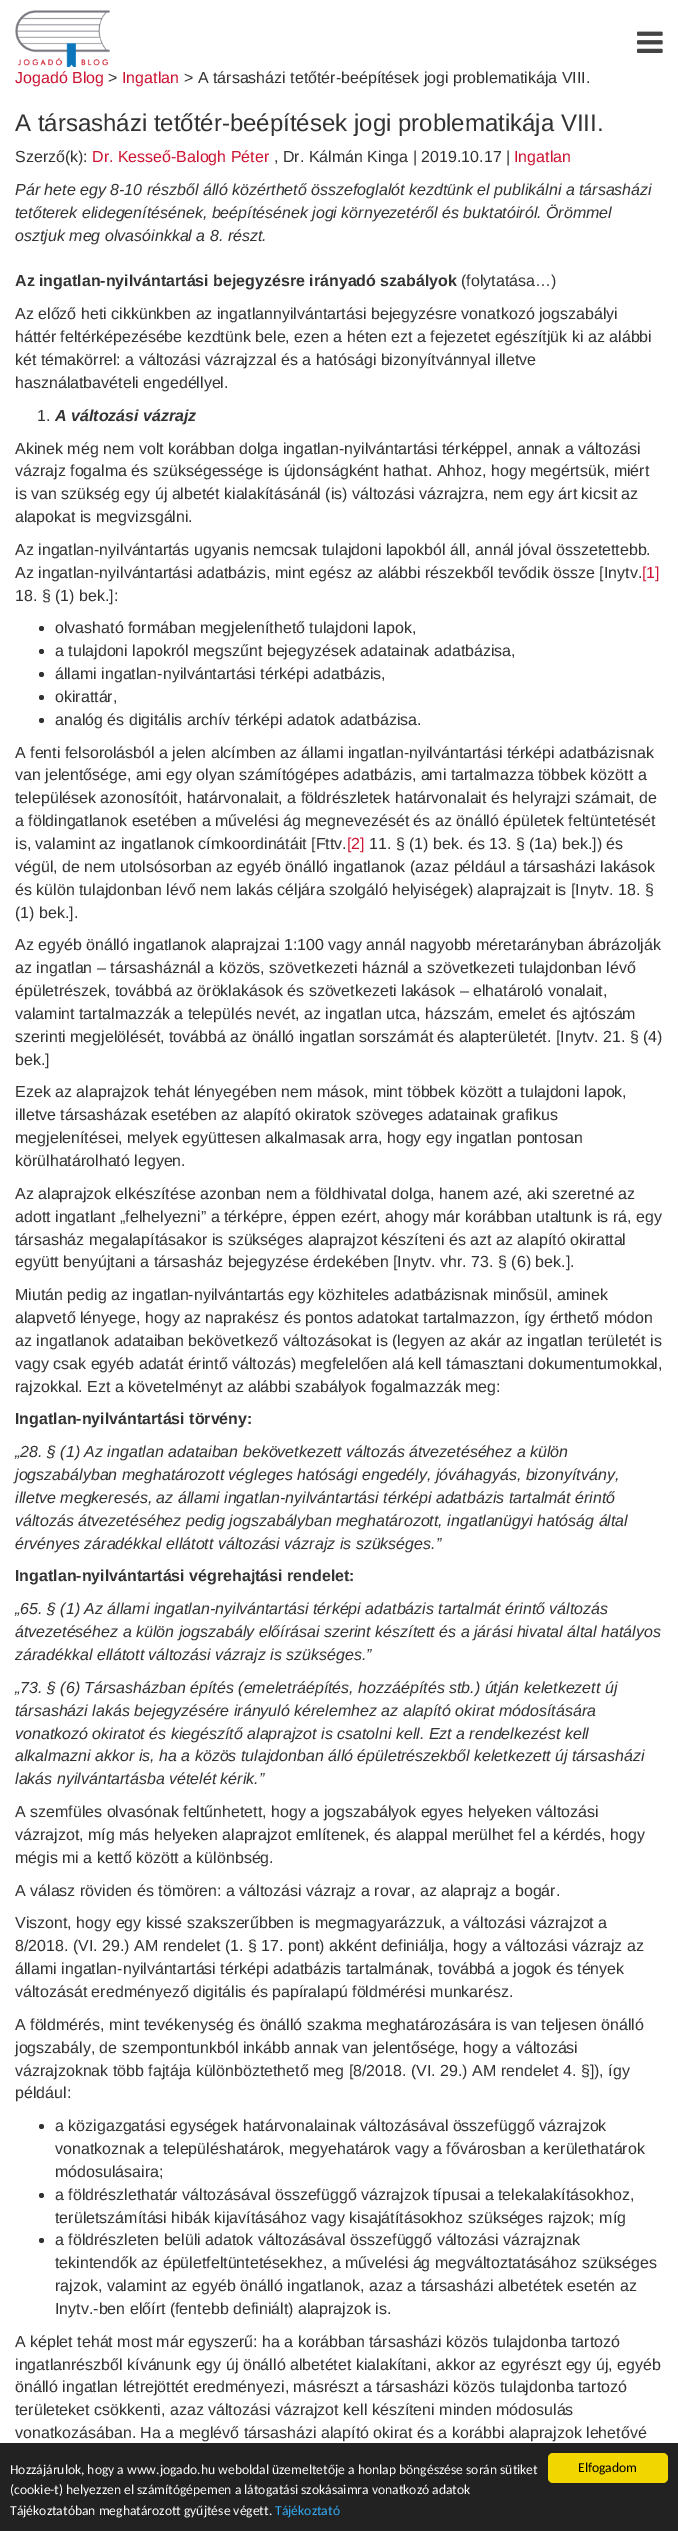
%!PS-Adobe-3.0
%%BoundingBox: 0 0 678 2531
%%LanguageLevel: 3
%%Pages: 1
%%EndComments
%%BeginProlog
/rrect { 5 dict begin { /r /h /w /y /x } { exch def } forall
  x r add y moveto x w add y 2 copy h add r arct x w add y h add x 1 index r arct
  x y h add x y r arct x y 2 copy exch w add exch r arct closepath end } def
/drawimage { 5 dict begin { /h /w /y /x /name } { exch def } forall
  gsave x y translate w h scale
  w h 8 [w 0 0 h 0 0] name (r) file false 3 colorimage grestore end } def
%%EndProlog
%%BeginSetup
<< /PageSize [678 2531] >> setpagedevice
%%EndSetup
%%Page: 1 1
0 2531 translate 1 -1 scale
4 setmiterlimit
1 setgray
0 0 678 2531 rectfill
(images/1.raw) 15 10 95 57 drawimage
(images/2.raw) 637 31 26 22 drawimage
0.2 setgray
newpath 41.5 628.5 2.5 0 360 arc closepath fill
newpath 41.5 651.5 2.5 0 360 arc closepath fill
newpath 41.5 674.5 2.5 0 360 arc closepath fill
newpath 41.5 697.5 2.5 0 360 arc closepath fill
newpath 41.5 720.5 2.5 0 360 arc closepath fill
newpath 41.5 2126.5 2.5 0 360 arc closepath fill
newpath 41.5 2195.5 2.5 0 360 arc closepath fill
newpath 41.5 2240.5 2.5 0 360 arc closepath fill
0.133 setgray
0 2443 678 88 rectfill
0.945 0.839 0 setrgbcolor
548 2453 120 30 5 rrect fill
/LiberationSans-Regular [16 0 0 -16 0 0] selectfont
0.804 0.078 0.196 setrgbcolor
15 83 moveto (Jogadó Blog) show
0.2 setgray
108 83 moveto (>) show
0.804 0.078 0.196 setrgbcolor
122 83 moveto (Ingatlan) show
0.2 setgray
184 83 moveto (> A társasházi tetőtér-beépítések jogi problematikája VIII.) show
/LiberationSans-Regular [24 0 0 -24 0 0] selectfont
15 131 moveto (A társasházi tetőtér-beépítések jogi problematikája VIII.) show
/LiberationSans-Regular [16 0 0 -16 0 0] selectfont
15 162 moveto (Szerző\(k\):) show
0.804 0.078 0.196 setrgbcolor
92 162 moveto (Dr. Kesseő-Balogh Péter) show
0.2 setgray
274 162 moveto (, Dr. Kálmán Kinga | 2019.10.17 |) show
0.804 0.078 0.196 setrgbcolor
514 162 moveto (Ingatlan) show
/LiberationSans-Italic [16 0 0 -16 0 0] selectfont
0.2 setgray
15 195 moveto (Pár hete egy 8-10 részből álló közérthető összefoglalót kezdtünk el publikálni a társasházi) show
15 218 moveto (tetőterek elidegenítésének, beépítésének jogi környezetéről és buktatóiról. Örömmel) show
15 241 moveto (osztjuk meg olvasóinkkal a 8. részt.) show
/LiberationSans-Bold [16 0 0 -16 0 0] selectfont
15 286 moveto (Az ingatlan-nyilvántartási bejegyzésre irányadó szabályok) show
/LiberationSans-Regular [16 0 0 -16 0 0] selectfont
461 286 moveto (\(folytatása…\)) show
15 319 moveto (Az előző heti cikkünkben az ingatlannyilvántartási bejegyzésre vonatkozó jogszabályi) show
15 342 moveto (háttér feltérképezésébe kezdtünk bele, ezen a héten ezt a fejezetet egészítjük ki az alábbi) show
15 365 moveto (két témakörrel: a változási vázrajzzal és a hatósági bizonyítvánnyal illetve) show
15 388 moveto (használatbavételi engedéllyel.) show
37 421 moveto (1.) show
/LiberationSans-BoldItalic [16 0 0 -16 0 0] selectfont
55 421 moveto (A változási vázrajz) show
/LiberationSans-Regular [16 0 0 -16 0 0] selectfont
15 454 moveto (Akinek még nem volt korábban dolga ingatlan-nyilvántartási térképpel, annak a változási) show
15 476 moveto (vázrajz fogalma és szükségessége is újdonságként hathat. Ahhoz, hogy megértsük, miért) show
15 499 moveto (is van szükség egy új albetét kialakításánál \(is\) változási vázrajzra, nem egy árt kicsit az) show
15 522 moveto (alapokat is megvizsgálni.) show
15 555 moveto (Az ingatlan-nyilvántartás ugyanis nemcsak tulajdoni lapokból áll, annál jóval összetettebb.) show
15 578 moveto (Az ingatlan-nyilvántartási adatbázis, mint egész az alábbi részekből tevődik össze [Inytv.) show
0.804 0.078 0.196 setrgbcolor
642 578 moveto ([1]) show
0.2 setgray
15 601 moveto (18. § \(1\) bek.]:) show
55 633 moveto (olvasható formában megjeleníthető tulajdoni lapok,) show
55 656 moveto (a tulajdoni lapokról megszűnt bejegyzések adatainak adatbázisa,) show
55 679 moveto (állami ingatlan-nyilvántartási térképi adatbázis,) show
55 702 moveto (okirattár,) show
55 725 moveto (analóg és digitális archív térképi adatok adatbázisa.) show
15 758 moveto (A fenti felsorolásból a jelen alcímben az állami ingatlan-nyilvántartási térképi adatbázisnak) show
15 780 moveto (van jelentősége, ami egy olyan számítógépes adatbázis, ami tartalmazza többek között a) show
15 803 moveto (települések azonosítóit, határvonalait, a földrészletek határvonalait és helyrajzi számait, de) show
15 826 moveto (a földingatlanok esetében a művelési ág megnevezését és az önálló épületek feltüntetését) show
15 849 moveto (is, valamint az ingatlanok címkoordinátáit [Fttv.) show
0.804 0.078 0.196 setrgbcolor
347 849 moveto ([2]) show
0.2 setgray
369 849 moveto (11. § \(1\) bek. és 13. § \(1a\) bek.]\) és) show
15 872 moveto (végül, de nem utolsósorban az egyéb önálló ingatlanok \(azaz például a társasházi lakások) show
15 895 moveto (és külön tulajdonban lévő nem lakás céljára szolgáló helyiségek\) alaprajzait is [Inytv. 18. §) show
15 918 moveto (\(1\) bek.].) show
15 950 moveto (Az egyéb önálló ingatlanok alaprajzai 1:100 vagy annál nagyobb méretarányban ábrázolják) show
15 973 moveto (az ingatlan – társasháznál a közös, szövetkezeti háznál a szövetkezeti tulajdonban lévő) show
15 996 moveto (épületrészek, továbbá az öröklakások és szövetkezeti lakások – elhatároló vonalait,) show
15 1019 moveto (valamint tartalmazzák a település nevét, az ingatlan utca, házszám, emelet és ajtószám) show
15 1042 moveto (szerinti megjelölését, továbbá az önálló ingatlan sorszámát és alapterületét. [Inytv. 21. § \(4\)) show
15 1065 moveto (bek.]) show
15 1097 moveto (Ezek az alaprajzok tehát lényegében nem mások, mint többek között a tulajdoni lapok,) show
15 1120 moveto (illetve társasházak esetében az alapító okiratok szöveges adatainak grafikus) show
15 1143 moveto (megjelenítései, melyek együttesen alkalmasak arra, hogy egy ingatlan pontosan) show
15 1166 moveto (körülhatárolható legyen.) show
15 1199 moveto (Az alaprajzok elkészítése azonban nem a földhivatal dolga, hanem azé, aki szeretné az) show
15 1222 moveto (adott ingatlant „felhelyezni” a térképre, éppen ezért, ahogy már korábban utaltunk is rá, egy) show
15 1245 moveto (társasház megalapításakor is szükséges alaprajzot készíteni és azt az alapító okirattal) show
15 1267 moveto (együtt benyújtani a társasház bejegyzése érdekében [Inytv. vhr. 73. § \(6\) bek.].) show
15 1300 moveto (Miután pedig az ingatlan-nyilvántartás egy közhiteles adatbázisnak minősül, aminek) show
15 1323 moveto (alapvető lényege, hogy az naprakész és pontos adatokat tartalmazzon, így érthető módon) show
15 1346 moveto (az ingatlanok adataiban bekövetkező változásokat is \(legyen az akár az ingatlan területét is) show
15 1369 moveto (vagy csak egyéb adatát érintő változás\) megfelelően alá kell támasztani dokumentumokkal,) show
15 1392 moveto (rajzokkal. Ezt a követelményt az alábbi szabályok fogalmazzák meg:) show
/LiberationSans-Bold [16 0 0 -16 0 0] selectfont
15 1424 moveto (Ingatlan-nyilvántartási törvény:) show
/LiberationSans-Italic [16 0 0 -16 0 0] selectfont
15 1457 moveto („28. § \(1\) Az ingatlan adataiban bekövetkezett változás átvezetéséhez a külön) show
15 1480 moveto (jogszabályban meghatározott végleges hatósági engedély, jóváhagyás, bizonyítvány,) show
15 1503 moveto (illetve megkeresés, az állami ingatlan-nyilvántartási térképi adatbázis tartalmát érintő) show
15 1526 moveto (változás átvezetéséhez pedig jogszabályban meghatározott, ingatlanügyi hatóság által) show
15 1549 moveto (érvényes záradékkal ellátott változási vázrajz is szükséges.”) show
/LiberationSans-Bold [16 0 0 -16 0 0] selectfont
15 1581 moveto (Ingatlan-nyilvántartási végrehajtási rendelet:) show
/LiberationSans-Italic [16 0 0 -16 0 0] selectfont
15 1614 moveto („65. § \(1\) Az állami ingatlan-nyilvántartási térképi adatbázis tartalmát érintő változás) show
15 1637 moveto (átvezetéséhez a külön jogszabály előírásai szerint készített és a járási hivatal által hatályos) show
15 1660 moveto (záradékkal ellátott változási vázrajz is szükséges.”) show
15 1693 moveto („73. § \(6\) Társasházban építés \(emeletráépítés, hozzáépítés stb.\) útján keletkezett új) show
15 1716 moveto (társasházi lakás bejegyzésére irányuló kérelemhez az alapító okirat módosítására) show
15 1739 moveto (vonatkozó okiratot és kiegészítő alaprajzot is csatolni kell. Ezt a rendelkezést kell) show
15 1761 moveto (alkalmazni akkor is, ha a közös tulajdonban álló épületrészekből keletkezett új társasházi) show
15 1784 moveto (lakás nyilvántartásba vételét kérik.”) show
/LiberationSans-Regular [16 0 0 -16 0 0] selectfont
15 1817 moveto (A szemfüles olvasónak feltűnhetett, hogy a jogszabályok egyes helyeken változási) show
15 1840 moveto (vázrajzot, míg más helyeken alaprajzot említenek, és alappal merülhet fel a kérdés, hogy) show
15 1863 moveto (mégis mi a kettő között a különbség.) show
15 1896 moveto (A válasz röviden és tömören: a változási vázrajz a rovar, az alaprajz a bogár.) show
15 1928 moveto (Viszont, hogy egy kissé szakszerűbben is megmagyarázzuk, a változási vázrajzot a) show
15 1951 moveto (8/2018. \(VI. 29.\) AM rendelet \(1. § 17. pont\) akként definiálja, hogy a változási vázrajz az) show
15 1974 moveto (állami ingatlan-nyilvántartási térképi adatbázis tartalmának, továbbá a jogok és tények) show
15 1997 moveto (változását eredményező digitális és papíralapú földmérési munkarész.) show
15 2030 moveto (A földmérés, mint tevékenység és önálló szakma meghatározására is van teljesen önálló) show
15 2053 moveto (jogszabály, de szempontunkból inkább annak van jelentősége, hogy a változási) show
15 2076 moveto (vázrajzoknak több fajtája különböztethető meg [8/2018. \(VI. 29.\) AM rendelet 4. §]\), így) show
15 2098 moveto (például:) show
55 2131 moveto (a közigazgatási egységek határvonalainak változásával összefüggő vázrajzok) show
55 2154 moveto (vonatkoznak a településhatárok, megyehatárok vagy a fővárosban a kerülethatárok) show
55 2177 moveto (módosulásaira;) show
55 2200 moveto (a földrészlethatár változásával összefüggő vázrajzok típusai a telekalakításokhoz,) show
55 2223 moveto (területszámítási hibák kijavításához vagy kisajátításokhoz szükséges rajzok; míg) show
55 2245 moveto (a földrészleten belüli adatok változásával összefüggő változási vázrajznak) show
55 2268 moveto (tekintendők az épületfeltüntetésekhez, a művelési ág megváltoztatásához szükséges) show
55 2291 moveto (rajzok, valamint az egyéb önálló ingatlanok, azaz a társasházi albetétek esetén az) show
55 2314 moveto (Inytv.-ben előírt \(fentebb definiált\) alaprajzok is.) show
15 2347 moveto (A képlet tehát most már egyszerű: ha a korábban társasházi közös tulajdonba tartozó) show
15 2370 moveto (ingatlanrészből kívánunk egy új önálló albetétet kialakítani, akkor az egyrészt egy új, egyéb) show
15 2392 moveto (önálló ingatlan létrejöttét eredményezi, másrészt a társasházi közös tulajdonba tartozó) show
15 2415 moveto (területeket csökkenti, azaz változási vázrajzot kell készíteni minden módosulás) show
15 2438 moveto (vonatkozásában. Ha a meglévő társasházi alapító okirat és a korábbi alaprajzok lehetővé) show
/Carlito-Regular [13.6 0 0 -13.6 0 0] selectfont
1 setgray
10 2474 moveto (Hozzájárulok, hogy a www.jogado.hu weboldal üzemeltetője a honlap böngészése során sütiket) show
10 2494 moveto (\(cookie-t\) helyezzen el számítógépemen a látogatási szokásaimra vonatkozó adatok) show
10 2515 moveto (Tájékoztatóban meghatározott gyűjtése végett.) show
0.192 0.659 0.941 setrgbcolor
275 2515 moveto (Tájékoztató) show
0 setgray
578 2472 moveto (Elfogadom) show
showpage
%%EOF
